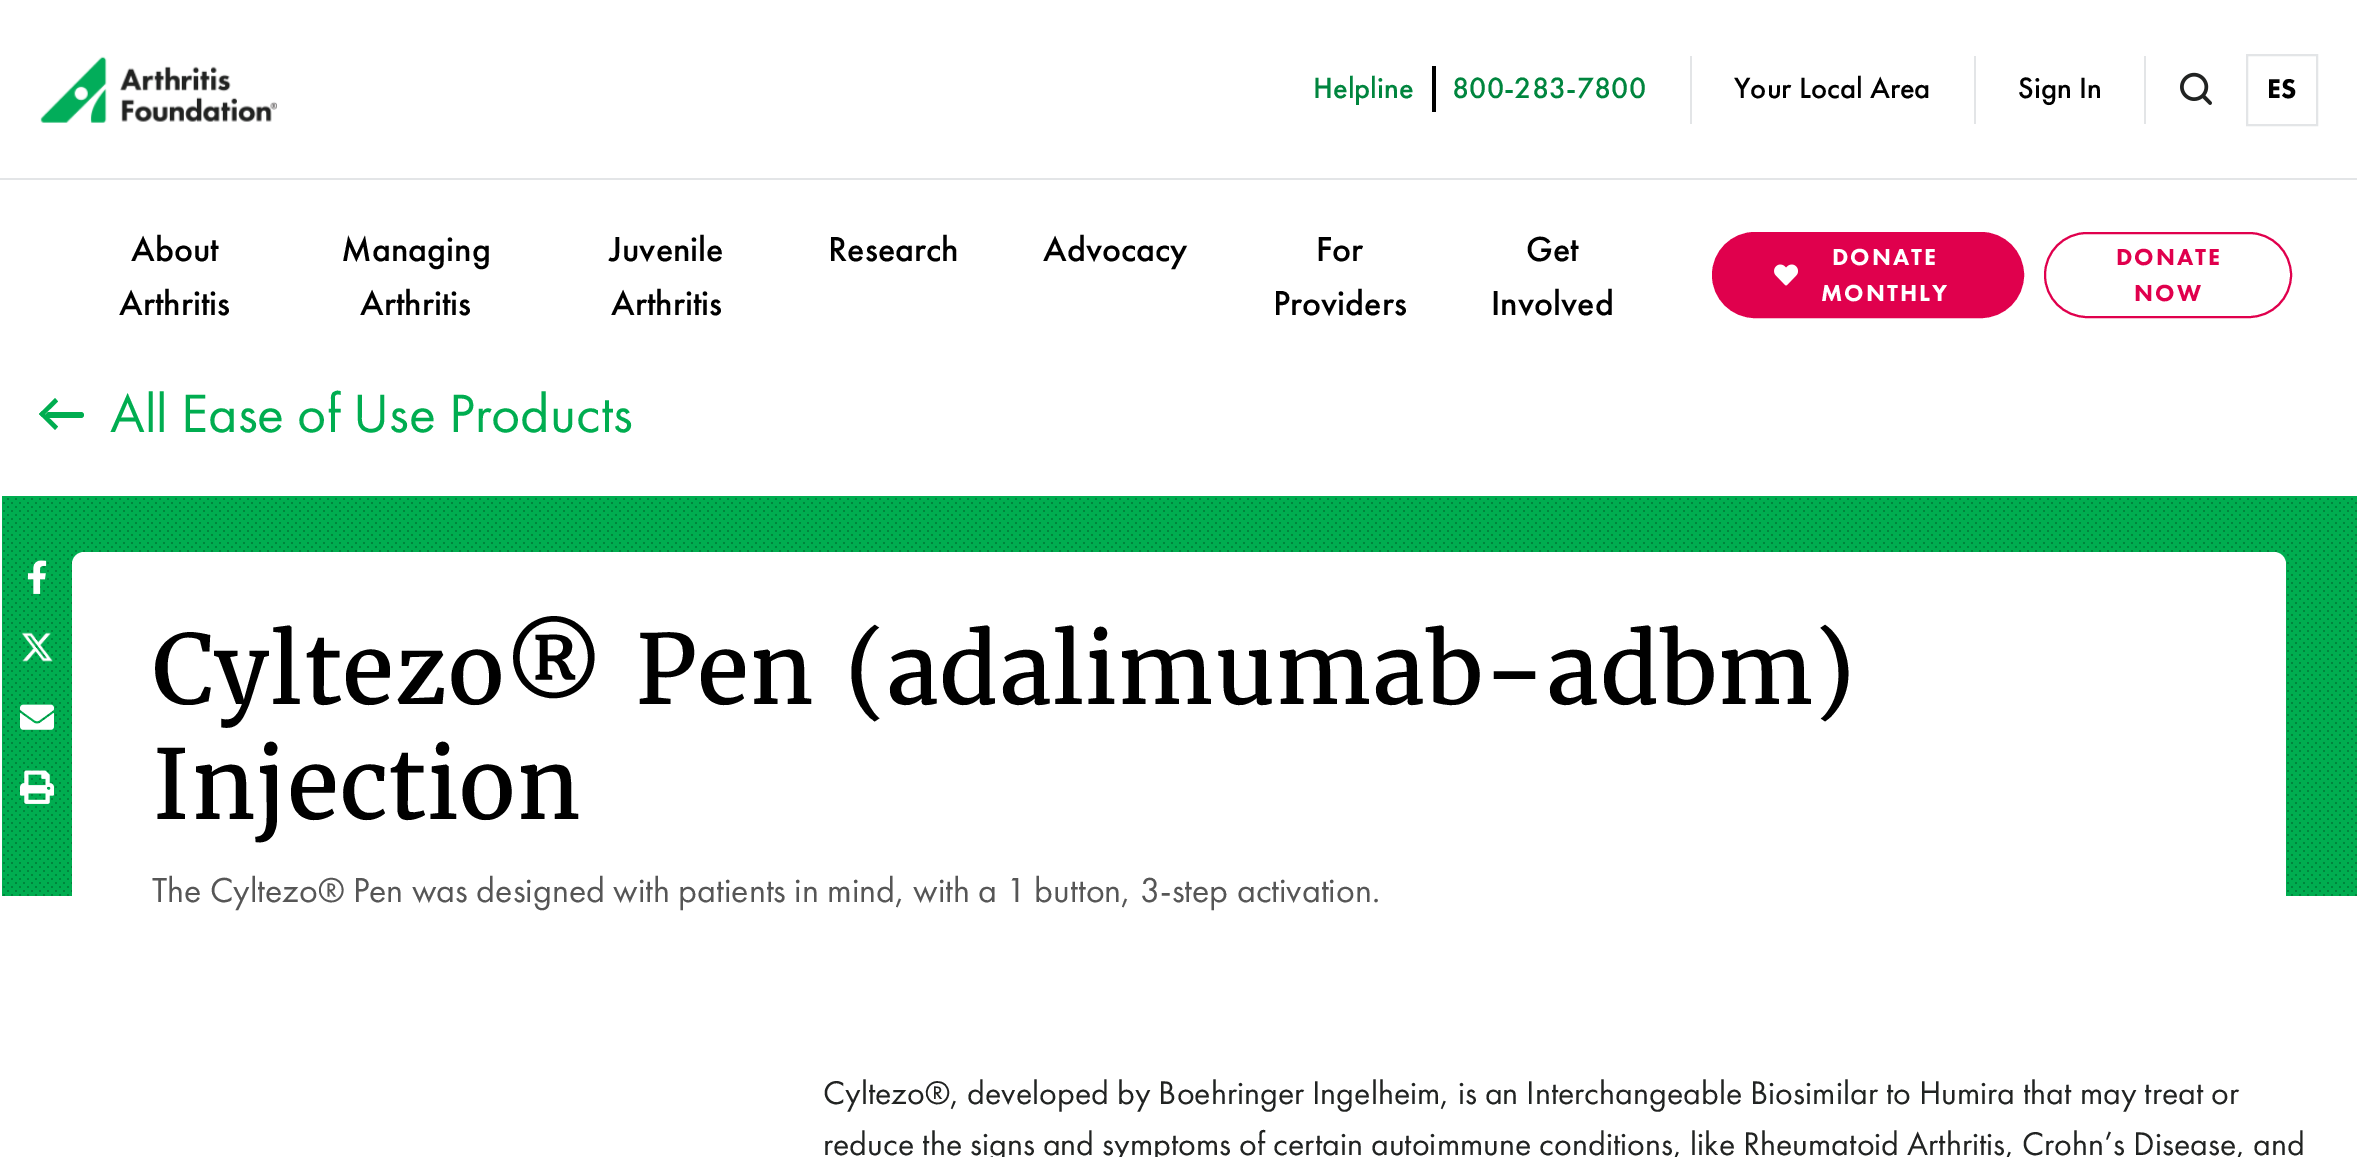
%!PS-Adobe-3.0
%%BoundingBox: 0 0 2357 1157
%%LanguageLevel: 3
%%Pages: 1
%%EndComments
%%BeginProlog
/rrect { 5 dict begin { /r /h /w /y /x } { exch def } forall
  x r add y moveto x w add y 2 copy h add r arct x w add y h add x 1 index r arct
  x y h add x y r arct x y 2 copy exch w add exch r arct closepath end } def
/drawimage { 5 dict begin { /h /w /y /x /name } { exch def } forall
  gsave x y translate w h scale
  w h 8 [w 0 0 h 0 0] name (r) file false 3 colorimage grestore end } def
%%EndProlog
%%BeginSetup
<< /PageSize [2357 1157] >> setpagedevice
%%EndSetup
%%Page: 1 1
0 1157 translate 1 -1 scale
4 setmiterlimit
1 setgray
0 0 2357 1157 rectfill
(images/1.raw) 40 56 237 67 drawimage
0 setgray
1432 66 4 46 rectfill
0.89 0.898 0.906 setrgbcolor
1690 56 2 68 rectfill
1974 56 2 68 rectfill
2144 56 2 68 rectfill
(images/2.raw) 2180 72 32 33 drawimage
2 setlinewidth
2247 55 70 70 rectstroke
0 178 2357 2 rectfill
0.878 0 0.302 setrgbcolor
1713 233 310 84 42 rrect gsave fill grestore
stroke
(images/3.raw) 1774 264 24 22 drawimage
2045 233 246 84 42 rrect stroke
0 0.678 0.314 setrgbcolor
newpath 39 414 moveto 55 398 lineto 58 401.5 lineto 42 417 lineto closepath fill
newpath 39 414 moveto 42 411 lineto 58 426.5 lineto 55 430 lineto closepath fill
46 412 38 6 3 rrect fill
2 496 2355 400 rectfill
(images/4.raw) 3 498 2354 398 drawimage
(images/5.raw) 27 560 20 34 drawimage
(images/6.raw) 21 632 32 30 drawimage
(images/7.raw) 20 704 34 26 drawimage
(images/8.raw) 20 770 34 34 drawimage
1 setgray
newpath 84 552 moveto 2274 552 lineto 2280.5 552 2286 557.5 2286 564 curveto 2286 932 lineto 72 932 lineto 72 564 lineto 72 557.5 77.5 552 84 552 curveto closepath fill
/FuturaPT-Medium [30.5 0 0 -30.5 0 0] selectfont
0 0.522 0.243 setrgbcolor
1313 98 moveto (Helpline) show
1452 98 moveto (800-283-7800) show
0 setgray
1734 98 moveto (Your Local Area) show
2018 98 moveto (Sign In) show
/FuturaPT-Black [28 0 0 -28 0 0] selectfont
2267 98 moveto (ES) show
/FuturaPT-Medium [36 0 0 -36 0 0] selectfont
131 261 moveto (About) show
119 315 moveto (Arthritis) show
341 261 moveto (Managing) show
360 315 moveto (Arthritis) show
609 261 moveto (Juvenile) show
611 315 moveto (Arthritis) show
828 261 moveto (Research) show
1043 261 moveto (Advocacy) show
1316 261 moveto (For) show
1273 315 moveto (Providers) show
1526 261 moveto (Get) show
1491 315 moveto (Involved) show
/FuturaPT-Black [24 0 0 -24 0 0] selectfont
1 setgray
1832 265 moveto 2 0 (DONATE) ashow
1821 301 moveto 2 0 (MONTHLY) ashow
0.878 0 0.302 setrgbcolor
2116 265 moveto 2 0 (DONATE) ashow
2134 301 moveto 2 0 (NOW) ashow
/FuturaPT-Regular [56 0 0 -56 0 0] selectfont
0 0.678 0.314 setrgbcolor
110 432 moveto (All Ease of Use Products) show
/Merriweather-Regular [96 0 0 -96 0 0] selectfont
0 setgray
152 704 moveto (Cyltezo® Pen \(adalimumab-adbm\)) show
152 819 moveto (Injection) show
/FuturaPT-Regular [36 0 0 -36 0 0] selectfont
0.337 setgray
152 902 moveto (The Cyltezo® Pen was designed with patients in mind, with a 1 button, 3-step activation.) show
/FuturaPT-Regular [34 0 0 -34 0 0] selectfont
0.129 0.137 0.133 setrgbcolor
823 1104 moveto (Cyltezo®, developed by Boehringer Ingelheim, is an Interchangeable Biosimilar to Humira that may treat or) show
823 1155 moveto (reduce the signs and symptoms of certain autoimmune conditions, like Rheumatoid Arthritis, Crohn’s Disease, and) show
showpage
%%EOF
